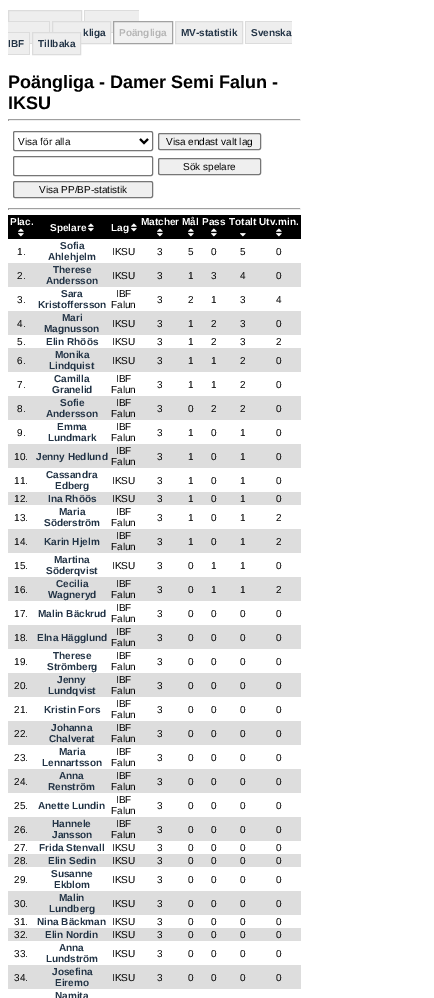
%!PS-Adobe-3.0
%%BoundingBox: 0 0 434 998
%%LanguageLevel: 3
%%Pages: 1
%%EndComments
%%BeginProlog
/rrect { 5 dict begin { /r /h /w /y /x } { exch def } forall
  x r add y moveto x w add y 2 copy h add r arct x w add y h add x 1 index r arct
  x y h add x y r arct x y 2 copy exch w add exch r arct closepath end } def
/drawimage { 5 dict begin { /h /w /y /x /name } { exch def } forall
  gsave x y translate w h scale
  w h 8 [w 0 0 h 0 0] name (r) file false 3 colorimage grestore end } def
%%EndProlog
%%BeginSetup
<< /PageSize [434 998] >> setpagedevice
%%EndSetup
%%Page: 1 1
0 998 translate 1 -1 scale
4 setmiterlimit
1 setgray
0 0 434 998 rectfill
0.933 setgray
newpath 8.5 10.5 moveto 81.5 10.5 lineto 81.5 32.5 lineto 8.5 32.5 lineto closepath gsave fill grestore
0.863 setgray
stroke
84 10 55 1 rectfill
8 21 42 1 rectfill
84 10 1 11 rectfill
0.933 setgray
85 11 54 21 rectfill
8 22 41 21 rectfill
0.863 setgray
49 21 1 11 rectfill
0.933 setgray
newpath 52.5 21.5 moveto 110.5 21.5 lineto 110.5 43.5 lineto 52.5 43.5 lineto closepath gsave fill grestore
0.863 setgray
stroke
111 32 2 1 rectfill
0.945 setgray
newpath 113.5 21.5 moveto 172.5 21.5 lineto 172.5 43.5 lineto 113.5 43.5 lineto closepath gsave fill grestore
0.635 setgray
stroke
0.933 setgray
newpath 175.5 21.5 moveto 242.5 21.5 lineto 242.5 43.5 lineto 175.5 43.5 lineto closepath gsave fill grestore
0.863 setgray
stroke
0.933 setgray
246 22 46 21 rectfill
0.863 setgray
245 21 47 1 rectfill
245 43 47 1 rectfill
245 21 1 23 rectfill
0.933 setgray
8 43 21 11 rectfill
0.863 setgray
8 32 22 1 rectfill
29 32 1 23 rectfill
8 54 22 1 rectfill
30 43 2 1 rectfill
0.933 setgray
newpath 32.5 32.5 moveto 80.5 32.5 lineto 80.5 54.5 lineto 32.5 54.5 lineto closepath gsave fill grestore
0.863 setgray
stroke
0.624 setgray
8 119 293 1 rectfill
0.933 setgray
300 119 1 2 rectfill
8 120 293 1 rectfill
0.624 setgray
8 119 1 2 rectfill
0.463 setgray
13.5 131.5 139 19 1.5 rrect stroke
0 setgray
2 setlinewidth
newpath 140 139 moveto 144 143 lineto 148 139 lineto stroke
0.937 setgray
158.5 133.5 102 16 1.5 rrect gsave fill grestore
0.463 setgray
1 setlinewidth
stroke
13.5 156.5 139 19 1.5 rrect stroke
0.937 setgray
158.5 158.5 102 16 1.5 rrect gsave fill grestore
0.463 setgray
stroke
0.937 setgray
13.5 181.5 139 16 1.5 rrect gsave fill grestore
0.463 setgray
stroke
0.624 setgray
8 208 293 1 rectfill
0.933 setgray
300 208 1 2 rectfill
8 209 293 1 rectfill
0.624 setgray
8 208 1 2 rectfill
0 setgray
8 215 293 24 rectfill
(images/1.raw) 18 228 6 9 drawimage
(images/1.raw) 157 228 6 9 drawimage
(images/1.raw) 188 228 6 9 drawimage
(images/1.raw) 211 228 6 9 drawimage
(images/2.raw) 240 233 6 4 drawimage
(images/1.raw) 276 228 6 9 drawimage
(images/1.raw) 88 223 6 9 drawimage
(images/1.raw) 131 223 6 9 drawimage
0.867 setgray
8 263 293 24 rectfill
8 311 293 24 rectfill
8 348 293 24 rectfill
8 396 293 24 rectfill
8 444 293 24 rectfill
8 492 293 13 rectfill
8 529 293 24 rectfill
8 577 293 24 rectfill
8 625 293 24 rectfill
8 673 293 24 rectfill
8 721 293 24 rectfill
8 769 293 24 rectfill
8 817 293 24 rectfill
8 854 293 13 rectfill
8 891 293 24 rectfill
8 928 293 13 rectfill
8 965 293 24 rectfill
/LiberationSans-Bold [10 0 0 -10 0 0] selectfont
0.137 0.204 0.275 setrgbcolor
83 36 moveto (kliga) show
0.714 setgray
119 36 moveto (Poängliga) show
0.137 0.204 0.275 setrgbcolor
181 36 moveto (MV-statistik) show
251 36 moveto (Svenska) show
8 47 moveto (IBF) show
38 47 moveto (Tillbaka) show
/LiberationSans-Bold [18 0 0 -18 0 0] selectfont
0 setgray
8 88 moveto (Poängliga - Damer Semi Falun -) show
8 109 moveto (IKSU) show
/LiberationSans-Regular [10 0 0 -10 0 0] selectfont
18 145 moveto (Visa för alla) show
166 145 moveto (Visa endast valt lag) show
183 170 moveto (Sök spelare) show
39 193 moveto (Visa PP/BP-statistik) show
/LiberationSans-Bold [10 0 0 -10 0 0] selectfont
1 setgray
10 225 moveto (Plac.) show
141 225 moveto (Matcher) show
182 225 moveto (Mål) show
202 225 moveto (Pass) show
229 225 moveto (Totalt) show
259 225 moveto (Utv.min.) show
50 231 moveto (Spelare) show
111 231 moveto (Lag) show
/LiberationSans-Regular [10 0 0 -10 0 0] selectfont
0 setgray
17 255 moveto (1.) show
/LiberationSans-Bold [10 0 0 -10 0 0] selectfont
0.137 0.204 0.275 setrgbcolor
60 249 moveto (Sofia) show
48 260 moveto (Ahlehjelm) show
/LiberationSans-Regular [10 0 0 -10 0 0] selectfont
0 setgray
112 255 moveto (IKSU) show
157 255 moveto (3) show
188 255 moveto (5) show
211 255 moveto (0) show
240 255 moveto (5) show
276 255 moveto (0) show
17 279 moveto (2.) show
/LiberationSans-Bold [10 0 0 -10 0 0] selectfont
0.137 0.204 0.275 setrgbcolor
53 273 moveto (Therese) show
46 284 moveto (Andersson) show
/LiberationSans-Regular [10 0 0 -10 0 0] selectfont
0 setgray
112 279 moveto (IKSU) show
157 279 moveto (3) show
188 279 moveto (1) show
211 279 moveto (3) show
240 279 moveto (4) show
276 279 moveto (0) show
17 303 moveto (3.) show
/LiberationSans-Bold [10 0 0 -10 0 0] selectfont
0.137 0.204 0.275 setrgbcolor
61 297 moveto (Sara) show
38 308 moveto (Kristoffersson) show
/LiberationSans-Regular [10 0 0 -10 0 0] selectfont
0 setgray
116 297 moveto (IBF) show
111 308 moveto (Falun) show
157 303 moveto (3) show
188 303 moveto (2) show
211 303 moveto (1) show
240 303 moveto (3) show
276 303 moveto (4) show
17 327 moveto (4.) show
/LiberationSans-Bold [10 0 0 -10 0 0] selectfont
0.137 0.204 0.275 setrgbcolor
62 321 moveto (Mari) show
44 332 moveto (Magnusson) show
/LiberationSans-Regular [10 0 0 -10 0 0] selectfont
0 setgray
112 327 moveto (IKSU) show
157 327 moveto (3) show
188 327 moveto (1) show
211 327 moveto (2) show
240 327 moveto (3) show
276 327 moveto (0) show
17 345 moveto (5.) show
/LiberationSans-Bold [10 0 0 -10 0 0] selectfont
0.137 0.204 0.275 setrgbcolor
46 345 moveto (Elin Rhöös) show
/LiberationSans-Regular [10 0 0 -10 0 0] selectfont
0 setgray
112 345 moveto (IKSU) show
157 345 moveto (3) show
188 345 moveto (1) show
211 345 moveto (2) show
240 345 moveto (3) show
276 345 moveto (2) show
17 364 moveto (6.) show
/LiberationSans-Bold [10 0 0 -10 0 0] selectfont
0.137 0.204 0.275 setrgbcolor
55 358 moveto (Monika) show
49 369 moveto (Lindquist) show
/LiberationSans-Regular [10 0 0 -10 0 0] selectfont
0 setgray
112 364 moveto (IKSU) show
157 364 moveto (3) show
188 364 moveto (1) show
211 364 moveto (1) show
240 364 moveto (2) show
276 364 moveto (0) show
17 388 moveto (7.) show
/LiberationSans-Bold [10 0 0 -10 0 0] selectfont
0.137 0.204 0.275 setrgbcolor
54 382 moveto (Camilla) show
52 393 moveto (Granelid) show
/LiberationSans-Regular [10 0 0 -10 0 0] selectfont
0 setgray
116 382 moveto (IBF) show
111 393 moveto (Falun) show
157 388 moveto (3) show
188 388 moveto (1) show
211 388 moveto (1) show
240 388 moveto (2) show
276 388 moveto (0) show
17 412 moveto (8.) show
/LiberationSans-Bold [10 0 0 -10 0 0] selectfont
0.137 0.204 0.275 setrgbcolor
60 406 moveto (Sofie) show
46 417 moveto (Andersson) show
/LiberationSans-Regular [10 0 0 -10 0 0] selectfont
0 setgray
116 406 moveto (IBF) show
111 417 moveto (Falun) show
157 412 moveto (3) show
188 412 moveto (0) show
211 412 moveto (2) show
240 412 moveto (2) show
276 412 moveto (0) show
17 436 moveto (9.) show
/LiberationSans-Bold [10 0 0 -10 0 0] selectfont
0.137 0.204 0.275 setrgbcolor
57 430 moveto (Emma) show
48 441 moveto (Lundmark) show
/LiberationSans-Regular [10 0 0 -10 0 0] selectfont
0 setgray
116 430 moveto (IBF) show
111 441 moveto (Falun) show
157 436 moveto (3) show
188 436 moveto (1) show
211 436 moveto (0) show
240 436 moveto (1) show
276 436 moveto (0) show
14 460 moveto (10.) show
/LiberationSans-Bold [10 0 0 -10 0 0] selectfont
0.137 0.204 0.275 setrgbcolor
36 460 moveto (Jenny Hedlund) show
/LiberationSans-Regular [10 0 0 -10 0 0] selectfont
0 setgray
116 454 moveto (IBF) show
111 465 moveto (Falun) show
157 460 moveto (3) show
188 460 moveto (1) show
211 460 moveto (0) show
240 460 moveto (1) show
276 460 moveto (0) show
14 484 moveto (11.) show
/LiberationSans-Bold [10 0 0 -10 0 0] selectfont
0.137 0.204 0.275 setrgbcolor
46 478 moveto (Cassandra) show
55 489 moveto (Edberg) show
/LiberationSans-Regular [10 0 0 -10 0 0] selectfont
0 setgray
112 484 moveto (IKSU) show
157 484 moveto (3) show
188 484 moveto (1) show
211 484 moveto (0) show
240 484 moveto (1) show
276 484 moveto (0) show
14 502 moveto (12.) show
/LiberationSans-Bold [10 0 0 -10 0 0] selectfont
0.137 0.204 0.275 setrgbcolor
48 502 moveto (Ina Rhöös) show
/LiberationSans-Regular [10 0 0 -10 0 0] selectfont
0 setgray
112 502 moveto (IKSU) show
157 502 moveto (3) show
188 502 moveto (1) show
211 502 moveto (0) show
240 502 moveto (1) show
276 502 moveto (0) show
14 521 moveto (13.) show
/LiberationSans-Bold [10 0 0 -10 0 0] selectfont
0.137 0.204 0.275 setrgbcolor
59 515 moveto (Maria) show
44 526 moveto (Söderström) show
/LiberationSans-Regular [10 0 0 -10 0 0] selectfont
0 setgray
116 515 moveto (IBF) show
111 526 moveto (Falun) show
157 521 moveto (3) show
188 521 moveto (1) show
211 521 moveto (0) show
240 521 moveto (1) show
276 521 moveto (2) show
14 545 moveto (14.) show
/LiberationSans-Bold [10 0 0 -10 0 0] selectfont
0.137 0.204 0.275 setrgbcolor
44 545 moveto (Karin Hjelm) show
/LiberationSans-Regular [10 0 0 -10 0 0] selectfont
0 setgray
116 539 moveto (IBF) show
111 550 moveto (Falun) show
157 545 moveto (3) show
188 545 moveto (1) show
211 545 moveto (0) show
240 545 moveto (1) show
276 545 moveto (2) show
14 569 moveto (15.) show
/LiberationSans-Bold [10 0 0 -10 0 0] selectfont
0.137 0.204 0.275 setrgbcolor
54 563 moveto (Martina) show
46 574 moveto (Söderqvist) show
/LiberationSans-Regular [10 0 0 -10 0 0] selectfont
0 setgray
112 569 moveto (IKSU) show
157 569 moveto (3) show
188 569 moveto (0) show
211 569 moveto (1) show
240 569 moveto (1) show
276 569 moveto (0) show
14 593 moveto (16.) show
/LiberationSans-Bold [10 0 0 -10 0 0] selectfont
0.137 0.204 0.275 setrgbcolor
56 587 moveto (Cecilia) show
48 598 moveto (Wagneryd) show
/LiberationSans-Regular [10 0 0 -10 0 0] selectfont
0 setgray
116 587 moveto (IBF) show
111 598 moveto (Falun) show
157 593 moveto (3) show
188 593 moveto (0) show
211 593 moveto (1) show
240 593 moveto (1) show
276 593 moveto (2) show
14 617 moveto (17.) show
/LiberationSans-Bold [10 0 0 -10 0 0] selectfont
0.137 0.204 0.275 setrgbcolor
38 617 moveto (Malin Bäckrud) show
/LiberationSans-Regular [10 0 0 -10 0 0] selectfont
0 setgray
116 611 moveto (IBF) show
111 622 moveto (Falun) show
157 617 moveto (3) show
188 617 moveto (0) show
211 617 moveto (0) show
240 617 moveto (0) show
276 617 moveto (0) show
14 641 moveto (18.) show
/LiberationSans-Bold [10 0 0 -10 0 0] selectfont
0.137 0.204 0.275 setrgbcolor
37 641 moveto (Elna Hägglund) show
/LiberationSans-Regular [10 0 0 -10 0 0] selectfont
0 setgray
116 635 moveto (IBF) show
111 646 moveto (Falun) show
157 641 moveto (3) show
188 641 moveto (0) show
211 641 moveto (0) show
240 641 moveto (0) show
276 641 moveto (0) show
14 665 moveto (19.) show
/LiberationSans-Bold [10 0 0 -10 0 0] selectfont
0.137 0.204 0.275 setrgbcolor
53 659 moveto (Therese) show
47 670 moveto (Strömberg) show
/LiberationSans-Regular [10 0 0 -10 0 0] selectfont
0 setgray
116 659 moveto (IBF) show
111 670 moveto (Falun) show
157 665 moveto (3) show
188 665 moveto (0) show
211 665 moveto (0) show
240 665 moveto (0) show
276 665 moveto (0) show
14 689 moveto (20.) show
/LiberationSans-Bold [10 0 0 -10 0 0] selectfont
0.137 0.204 0.275 setrgbcolor
57 683 moveto (Jenny) show
48 694 moveto (Lundqvist) show
/LiberationSans-Regular [10 0 0 -10 0 0] selectfont
0 setgray
116 683 moveto (IBF) show
111 694 moveto (Falun) show
157 689 moveto (3) show
188 689 moveto (0) show
211 689 moveto (0) show
240 689 moveto (0) show
276 689 moveto (0) show
14 713 moveto (21.) show
/LiberationSans-Bold [10 0 0 -10 0 0] selectfont
0.137 0.204 0.275 setrgbcolor
44 713 moveto (Kristin Fors) show
/LiberationSans-Regular [10 0 0 -10 0 0] selectfont
0 setgray
116 707 moveto (IBF) show
111 718 moveto (Falun) show
157 713 moveto (3) show
188 713 moveto (0) show
211 713 moveto (0) show
240 713 moveto (0) show
276 713 moveto (0) show
14 737 moveto (22.) show
/LiberationSans-Bold [10 0 0 -10 0 0] selectfont
0.137 0.204 0.275 setrgbcolor
51 731 moveto (Johanna) show
49 742 moveto (Chalverat) show
/LiberationSans-Regular [10 0 0 -10 0 0] selectfont
0 setgray
116 731 moveto (IBF) show
111 742 moveto (Falun) show
157 737 moveto (3) show
188 737 moveto (0) show
211 737 moveto (0) show
240 737 moveto (0) show
276 737 moveto (0) show
14 761 moveto (23.) show
/LiberationSans-Bold [10 0 0 -10 0 0] selectfont
0.137 0.204 0.275 setrgbcolor
59 755 moveto (Maria) show
42 766 moveto (Lennartsson) show
/LiberationSans-Regular [10 0 0 -10 0 0] selectfont
0 setgray
116 755 moveto (IBF) show
111 766 moveto (Falun) show
157 761 moveto (3) show
188 761 moveto (0) show
211 761 moveto (0) show
240 761 moveto (0) show
276 761 moveto (0) show
14 785 moveto (24.) show
/LiberationSans-Bold [10 0 0 -10 0 0] selectfont
0.137 0.204 0.275 setrgbcolor
59 779 moveto (Anna) show
48 790 moveto (Renström) show
/LiberationSans-Regular [10 0 0 -10 0 0] selectfont
0 setgray
116 779 moveto (IBF) show
111 790 moveto (Falun) show
157 785 moveto (3) show
188 785 moveto (0) show
211 785 moveto (0) show
240 785 moveto (0) show
276 785 moveto (0) show
14 809 moveto (25.) show
/LiberationSans-Bold [10 0 0 -10 0 0] selectfont
0.137 0.204 0.275 setrgbcolor
38 809 moveto (Anette Lundin) show
/LiberationSans-Regular [10 0 0 -10 0 0] selectfont
0 setgray
116 803 moveto (IBF) show
111 814 moveto (Falun) show
157 809 moveto (3) show
188 809 moveto (0) show
211 809 moveto (0) show
240 809 moveto (0) show
276 809 moveto (0) show
14 833 moveto (26.) show
/LiberationSans-Bold [10 0 0 -10 0 0] selectfont
0.137 0.204 0.275 setrgbcolor
52 827 moveto (Hannele) show
52 838 moveto (Jansson) show
/LiberationSans-Regular [10 0 0 -10 0 0] selectfont
0 setgray
116 827 moveto (IBF) show
111 838 moveto (Falun) show
157 833 moveto (3) show
188 833 moveto (0) show
211 833 moveto (0) show
240 833 moveto (0) show
276 833 moveto (0) show
14 851 moveto (27.) show
/LiberationSans-Bold [10 0 0 -10 0 0] selectfont
0.137 0.204 0.275 setrgbcolor
39 851 moveto (Frida Stenvall) show
/LiberationSans-Regular [10 0 0 -10 0 0] selectfont
0 setgray
112 851 moveto (IKSU) show
157 851 moveto (3) show
188 851 moveto (0) show
211 851 moveto (0) show
240 851 moveto (0) show
276 851 moveto (0) show
14 864 moveto (28.) show
/LiberationSans-Bold [10 0 0 -10 0 0] selectfont
0.137 0.204 0.275 setrgbcolor
48 864 moveto (Elin Sedin) show
/LiberationSans-Regular [10 0 0 -10 0 0] selectfont
0 setgray
112 864 moveto (IKSU) show
157 864 moveto (3) show
188 864 moveto (0) show
211 864 moveto (0) show
240 864 moveto (0) show
276 864 moveto (0) show
14 883 moveto (29.) show
/LiberationSans-Bold [10 0 0 -10 0 0] selectfont
0.137 0.204 0.275 setrgbcolor
51 877 moveto (Susanne) show
54 888 moveto (Ekblom) show
/LiberationSans-Regular [10 0 0 -10 0 0] selectfont
0 setgray
112 883 moveto (IKSU) show
157 883 moveto (3) show
188 883 moveto (0) show
211 883 moveto (0) show
240 883 moveto (0) show
276 883 moveto (0) show
14 907 moveto (30.) show
/LiberationSans-Bold [10 0 0 -10 0 0] selectfont
0.137 0.204 0.275 setrgbcolor
59 901 moveto (Malin) show
49 912 moveto (Lundberg) show
/LiberationSans-Regular [10 0 0 -10 0 0] selectfont
0 setgray
112 907 moveto (IKSU) show
157 907 moveto (3) show
188 907 moveto (0) show
211 907 moveto (0) show
240 907 moveto (0) show
276 907 moveto (0) show
14 925 moveto (31.) show
/LiberationSans-Bold [10 0 0 -10 0 0] selectfont
0.137 0.204 0.275 setrgbcolor
37 925 moveto (Nina Bäckman) show
/LiberationSans-Regular [10 0 0 -10 0 0] selectfont
0 setgray
112 925 moveto (IKSU) show
157 925 moveto (3) show
188 925 moveto (0) show
211 925 moveto (0) show
240 925 moveto (0) show
276 925 moveto (0) show
14 938 moveto (32.) show
/LiberationSans-Bold [10 0 0 -10 0 0] selectfont
0.137 0.204 0.275 setrgbcolor
45 938 moveto (Elin Nordin) show
/LiberationSans-Regular [10 0 0 -10 0 0] selectfont
0 setgray
112 938 moveto (IKSU) show
157 938 moveto (3) show
188 938 moveto (0) show
211 938 moveto (0) show
240 938 moveto (0) show
276 938 moveto (0) show
14 957 moveto (33.) show
/LiberationSans-Bold [10 0 0 -10 0 0] selectfont
0.137 0.204 0.275 setrgbcolor
59 951 moveto (Anna) show
46 962 moveto (Lundström) show
/LiberationSans-Regular [10 0 0 -10 0 0] selectfont
0 setgray
112 957 moveto (IKSU) show
157 957 moveto (3) show
188 957 moveto (0) show
211 957 moveto (0) show
240 957 moveto (0) show
276 957 moveto (0) show
14 981 moveto (34.) show
/LiberationSans-Bold [10 0 0 -10 0 0] selectfont
0.137 0.204 0.275 setrgbcolor
52 975 moveto (Josefina) show
55 986 moveto (Eiremo) show
/LiberationSans-Regular [10 0 0 -10 0 0] selectfont
0 setgray
112 981 moveto (IKSU) show
157 981 moveto (3) show
188 981 moveto (0) show
211 981 moveto (0) show
240 981 moveto (0) show
276 981 moveto (0) show
/LiberationSans-Bold [10 0 0 -10 0 0] selectfont
0.137 0.204 0.275 setrgbcolor
55 999 moveto (Namita) show
showpage
%%EOF
